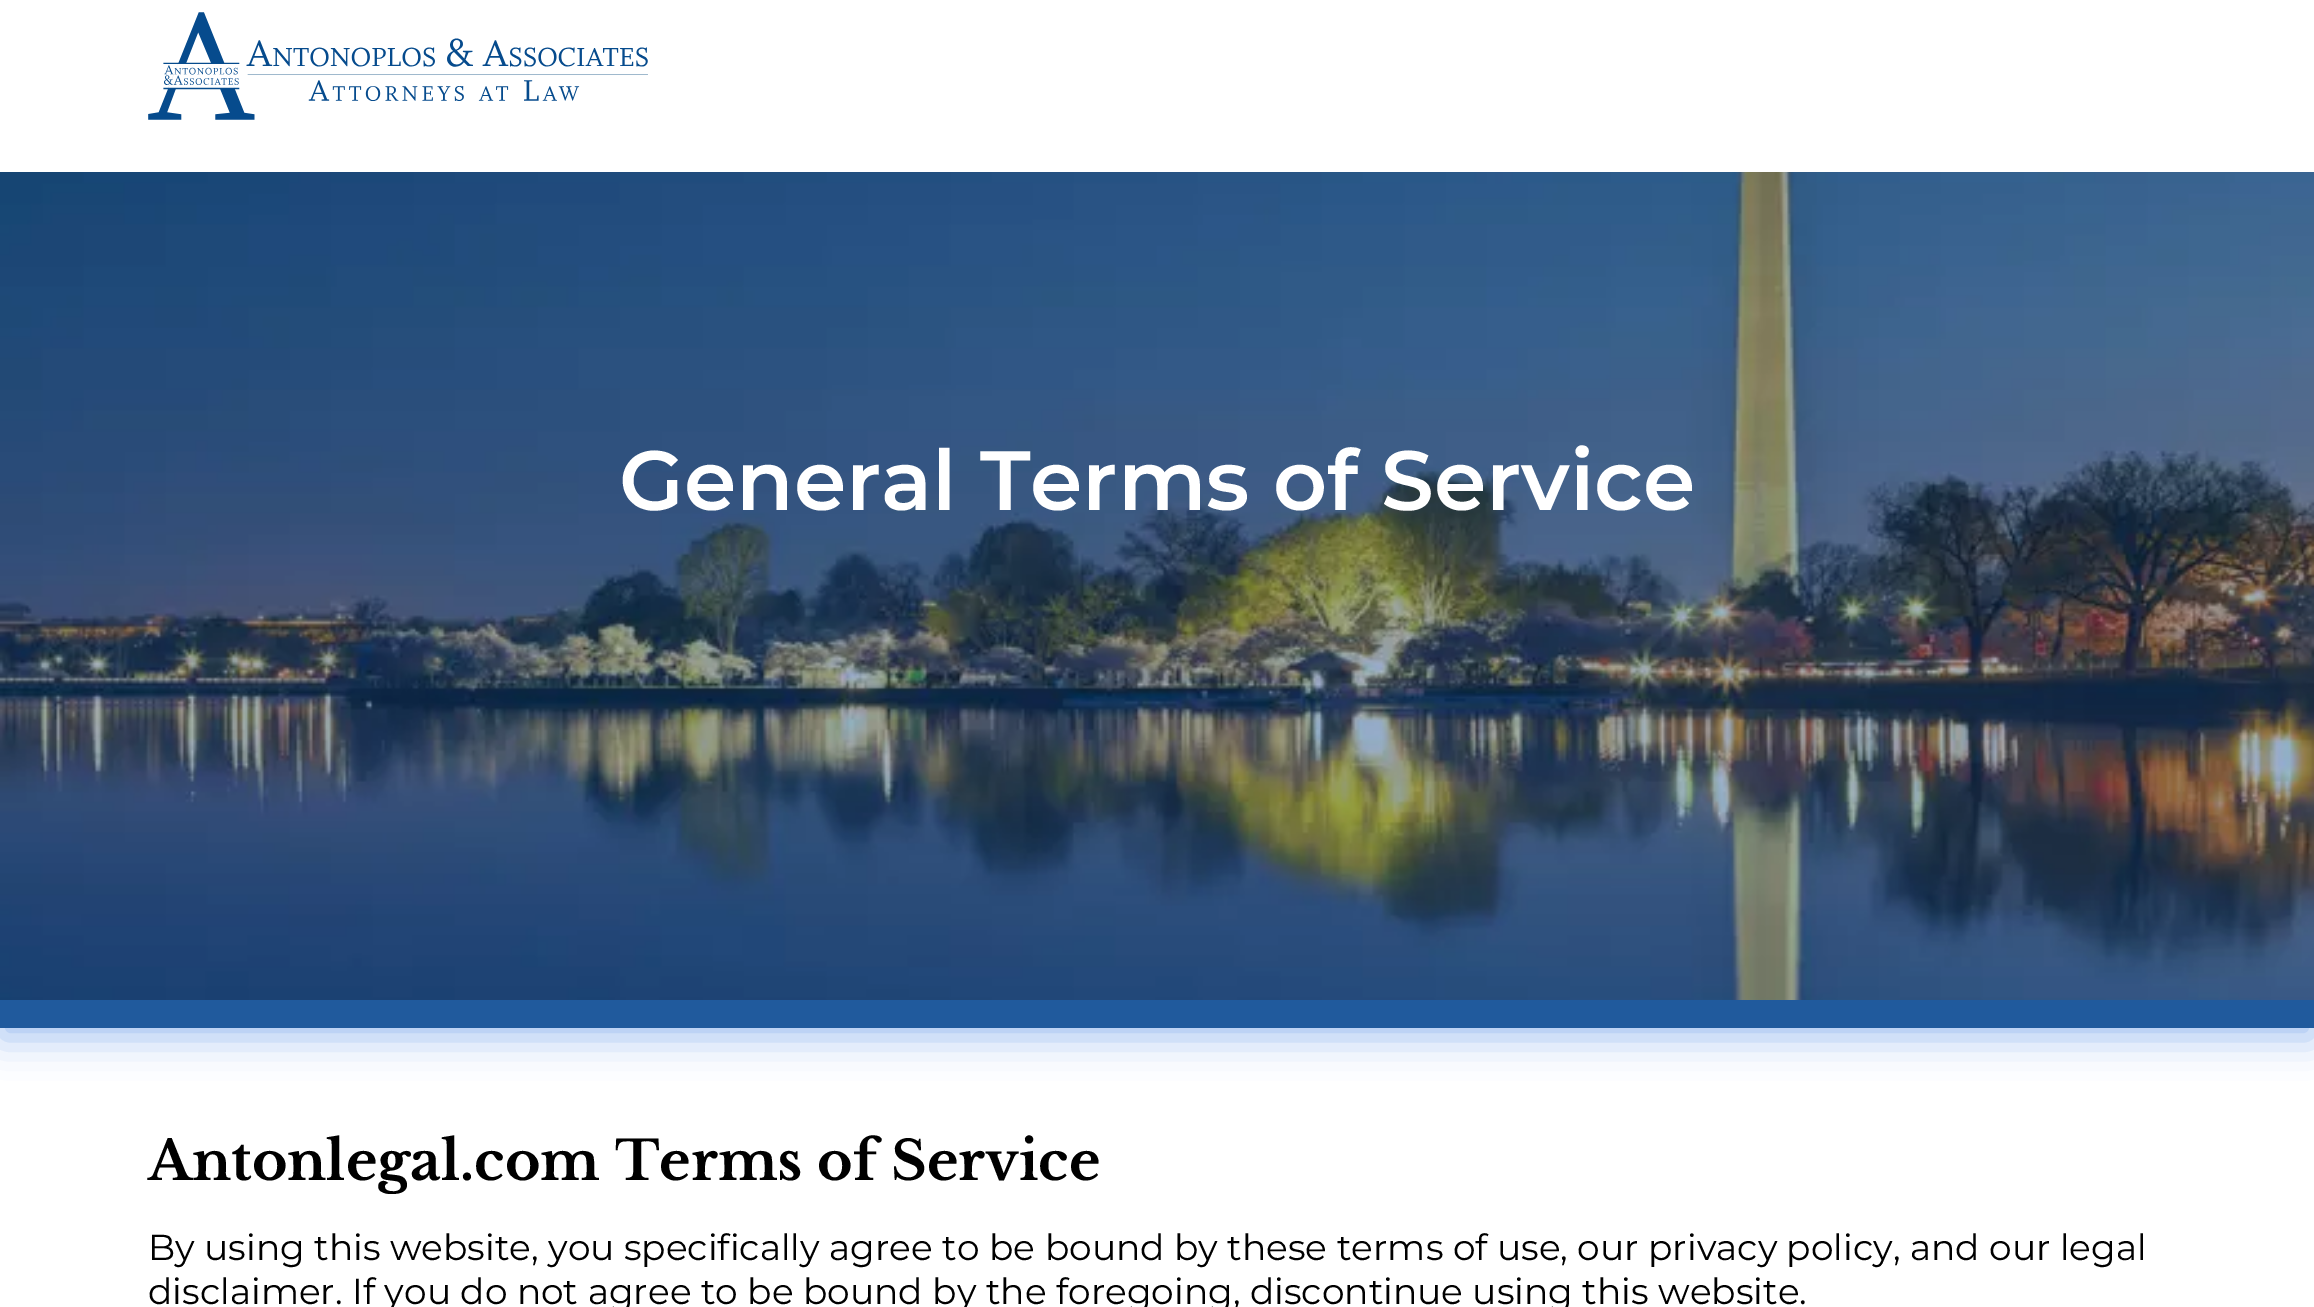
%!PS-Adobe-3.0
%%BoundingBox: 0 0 2314 1307
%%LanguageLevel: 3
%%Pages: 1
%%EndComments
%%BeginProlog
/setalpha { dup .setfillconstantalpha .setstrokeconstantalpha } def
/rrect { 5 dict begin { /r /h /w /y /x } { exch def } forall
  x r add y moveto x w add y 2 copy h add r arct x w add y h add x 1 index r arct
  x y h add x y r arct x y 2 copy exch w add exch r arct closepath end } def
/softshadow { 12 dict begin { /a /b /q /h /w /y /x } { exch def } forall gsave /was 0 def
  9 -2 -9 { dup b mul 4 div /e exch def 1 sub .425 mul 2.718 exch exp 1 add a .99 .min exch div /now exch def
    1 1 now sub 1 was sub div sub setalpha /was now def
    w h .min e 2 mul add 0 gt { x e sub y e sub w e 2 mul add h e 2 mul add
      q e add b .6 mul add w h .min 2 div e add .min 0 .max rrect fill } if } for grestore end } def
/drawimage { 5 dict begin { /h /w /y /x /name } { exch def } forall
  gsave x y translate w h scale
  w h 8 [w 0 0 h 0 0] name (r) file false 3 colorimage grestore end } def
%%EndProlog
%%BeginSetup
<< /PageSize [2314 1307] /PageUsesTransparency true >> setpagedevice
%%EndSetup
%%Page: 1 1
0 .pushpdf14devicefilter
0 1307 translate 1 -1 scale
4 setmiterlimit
1 setgray
0 0 2314 1307 rectfill
0.192 0.475 0.886 setrgbcolor
0 10 2314 1028 0 19 0.46 softshadow
1 setgray
0 0 2314 172 rectfill
(images/1.raw) 148 12 500 108 drawimage
(images/2.raw) 0 172 2314 828 drawimage
0.125 0.353 0.616 setrgbcolor
0 1000 2314 28 rectfill
/Montserrat-SemiBold [84 0 0 -84 0 0] selectfont
1 setgray
619 510 moveto (General Terms of Service) show
/LibreBaskerville-Bold [54 0 0 -54 0 0] selectfont
0 setgray
148 1180 moveto (Antonlegal.com Terms of Service) show
/Montserrat-Regular [36 0 0 -36 0 0] selectfont
148 1260 moveto (By using this website, you specifically agree to be bound by these terms of use, our privacy policy, and our legal) show
148 1304 moveto (disclaimer. If you do not agree to be bound by the foregoing, discontinue using this website.) show
.poppdf14devicefilter showpage
%%EOF
